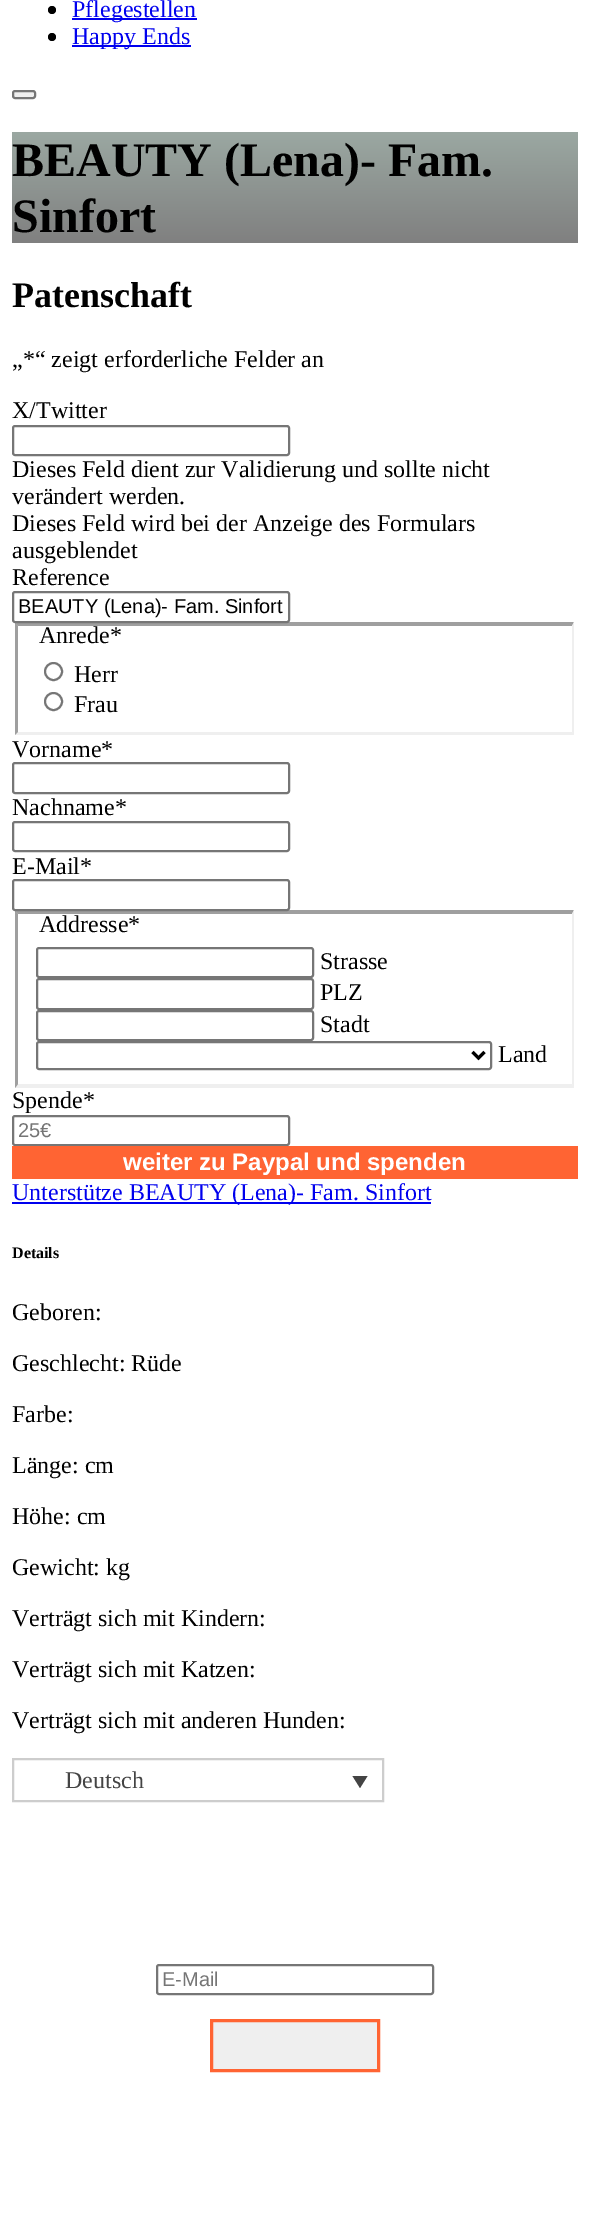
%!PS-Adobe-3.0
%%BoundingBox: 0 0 589 2218
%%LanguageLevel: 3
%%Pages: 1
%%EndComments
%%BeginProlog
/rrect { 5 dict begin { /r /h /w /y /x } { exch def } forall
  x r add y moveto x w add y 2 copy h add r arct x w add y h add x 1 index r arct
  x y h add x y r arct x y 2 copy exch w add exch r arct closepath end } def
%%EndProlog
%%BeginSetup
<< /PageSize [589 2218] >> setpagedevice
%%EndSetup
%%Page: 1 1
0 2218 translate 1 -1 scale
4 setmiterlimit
1 setgray
0 0 589 2218 rectfill
0 setgray
newpath 52 10 4 0 360 arc closepath fill
0 0 0.933 setrgbcolor
72 18 125 2 rectfill
0 setgray
newpath 52 37 4 0 360 arc closepath fill
0 0 0.933 setrgbcolor
72 45 119 2 rectfill
0.937 setgray
13 91 22 7 2 rrect gsave fill grestore
0.463 setgray
2 setlinewidth
stroke
gsave newpath 12 132 moveto 578 132 lineto 578 243 lineto 12 243 lineto closepath clip newpath
<< /ShadingType 2 /ColorSpace /DeviceRGB /Coords [295 132 295 243] /Extend [true true] /Function << /FunctionType 2 /Domain [0 1] /C0 [0.608 0.659 0.635] /C1 [0.502 0.502 0.502] /N 1 >> >> shfill grestore
13 426 276 29 2 rrect stroke
0.624 setgray
newpath 15 622 moveto 574 622 lineto 572 626 lineto 18 626 lineto closepath fill
0.937 setgray
newpath 574 622 moveto 574 735 lineto 572 732 lineto 572 626 lineto closepath fill
newpath 574 735 moveto 15 735 lineto 18 732 lineto 572 732 lineto closepath fill
0.624 setgray
newpath 15 735 moveto 15 622 lineto 18 626 lineto 18 732 lineto closepath fill
1 setgray
13 592 276 30 2 rrect gsave fill grestore
0.463 setgray
stroke
newpath 53.5 671.5 8.5 0 360 arc closepath stroke
newpath 53.5 701.5 8.5 0 360 arc closepath stroke
13 763 276 30 2 rrect stroke
13 822 276 29 2 rrect stroke
0.624 setgray
newpath 15 910 moveto 574 910 lineto 572 914 lineto 18 914 lineto closepath fill
0.937 setgray
newpath 574 910 moveto 574 1088 lineto 572 1084 lineto 572 914 lineto closepath fill
newpath 574 1088 moveto 15 1088 lineto 18 1084 lineto 572 1084 lineto closepath fill
0.624 setgray
newpath 15 1088 moveto 15 910 lineto 18 914 lineto 18 1084 lineto closepath fill
1 setgray
13 880 276 30 2 rrect gsave fill grestore
0.463 setgray
stroke
37 948 276 29 2 rrect stroke
37 979 276 30 2 rrect stroke
37 1011 276 29 2 rrect stroke
37 1042 454 27 2 rrect stroke
0 setgray
3 setlinewidth
newpath 472.5 1052 moveto 478.5 1058 lineto 484.5 1052 lineto stroke
0.463 setgray
2 setlinewidth
13 1116 276 29 2 rrect stroke
1 0.392 0.2 setrgbcolor
12 1146 566 33 rectfill
0 0 0.933 setrgbcolor
12 1202 419 2 rectfill
0.804 setgray
13 1759 370 42 rectstroke
0.267 setgray
newpath 352.5 1776 moveto 367.5 1776 lineto 360 1788 lineto closepath fill
0.463 setgray
157 1965 276 29 2 rrect stroke
0.937 setgray
newpath 211.5 2020.5 moveto 378.5 2020.5 lineto 378.5 2070.5 lineto 211.5 2070.5 lineto closepath gsave fill grestore
1 0.392 0.2 setrgbcolor
3 setlinewidth
stroke
/LiberationSerif-Regular [24 0 0 -24 0 0] selectfont
0 0 0.933 setrgbcolor
72 17 moveto (Pflegestellen) show
72 44 moveto (Happy Ends) show
/LiberationSerif-Bold [48 0 0 -48 0 0] selectfont
0 setgray
12 176 moveto (BEAUTY \(Lena\)- Fam.) show
12 232 moveto (Sinfort) show
/LiberationSerif-Bold [36 0 0 -36 0 0] selectfont
12 307 moveto (Patenschaft) show
/LiberationSerif-Regular [24 0 0 -24 0 0] selectfont
12 367 moveto („*“ zeigt erforderliche Felder an) show
12 418 moveto (X/Twitter) show
12 477 moveto (Dieses Feld dient zur Validierung und sollte nicht) show
12 504 moveto (verändert werden.) show
12 531 moveto (Dieses Feld wird bei der Anzeige des Formulars) show
12 558 moveto (ausgeblendet) show
12 585 moveto (Reference) show
/LiberationSans-Regular [20 0 0 -20 0 0] selectfont
18 613 moveto (BEAUTY \(Lena\)- Fam. Sinfort) show
/LiberationSerif-Regular [24 0 0 -24 0 0] selectfont
39 643 moveto (Anrede*) show
74 682 moveto (Herr) show
74 712 moveto (Frau) show
12 757 moveto (Vorname*) show
12 815 moveto (Nachname*) show
12 874 moveto (E-Mail*) show
39 932 moveto (Addresse*) show
320 969 moveto (Strasse) show
320 1000 moveto (PLZ) show
320 1032 moveto (Stadt) show
498 1062 moveto (Land) show
12 1108 moveto (Spende*) show
/LiberationSans-Regular [20 0 0 -20 0 0] selectfont
0.459 setgray
18 1137 moveto (25€) show
/LiberationSans-Bold [24 0 0 -24 0 0] selectfont
1 setgray
123 1170 moveto (weiter zu Paypal und spenden) show
/LiberationSerif-Regular [24 0 0 -24 0 0] selectfont
0 0 0.933 setrgbcolor
12 1200 moveto (Unterstütze BEAUTY \(Lena\)- Fam. Sinfort) show
/LiberationSerif-Bold [16 0 0 -16 0 0] selectfont
0 setgray
12 1258 moveto (Details) show
/LiberationSerif-Regular [24 0 0 -24 0 0] selectfont
12 1320 moveto (Geboren:) show
12 1371 moveto (Geschlecht: Rüde) show
12 1422 moveto (Farbe:) show
12 1473 moveto (Länge: cm) show
12 1524 moveto (Höhe: cm) show
12 1575 moveto (Gewicht: kg) show
12 1626 moveto (Verträgt sich mit Kindern:) show
12 1677 moveto (Verträgt sich mit Katzen:) show
12 1728 moveto (Verträgt sich mit anderen Hunden:) show
0.267 setgray
65 1788 moveto (Deutsch) show
/LiberationSans-Regular [20 0 0 -20 0 0] selectfont
0.459 setgray
162 1986 moveto (E-Mail) show
showpage
%%EOF
